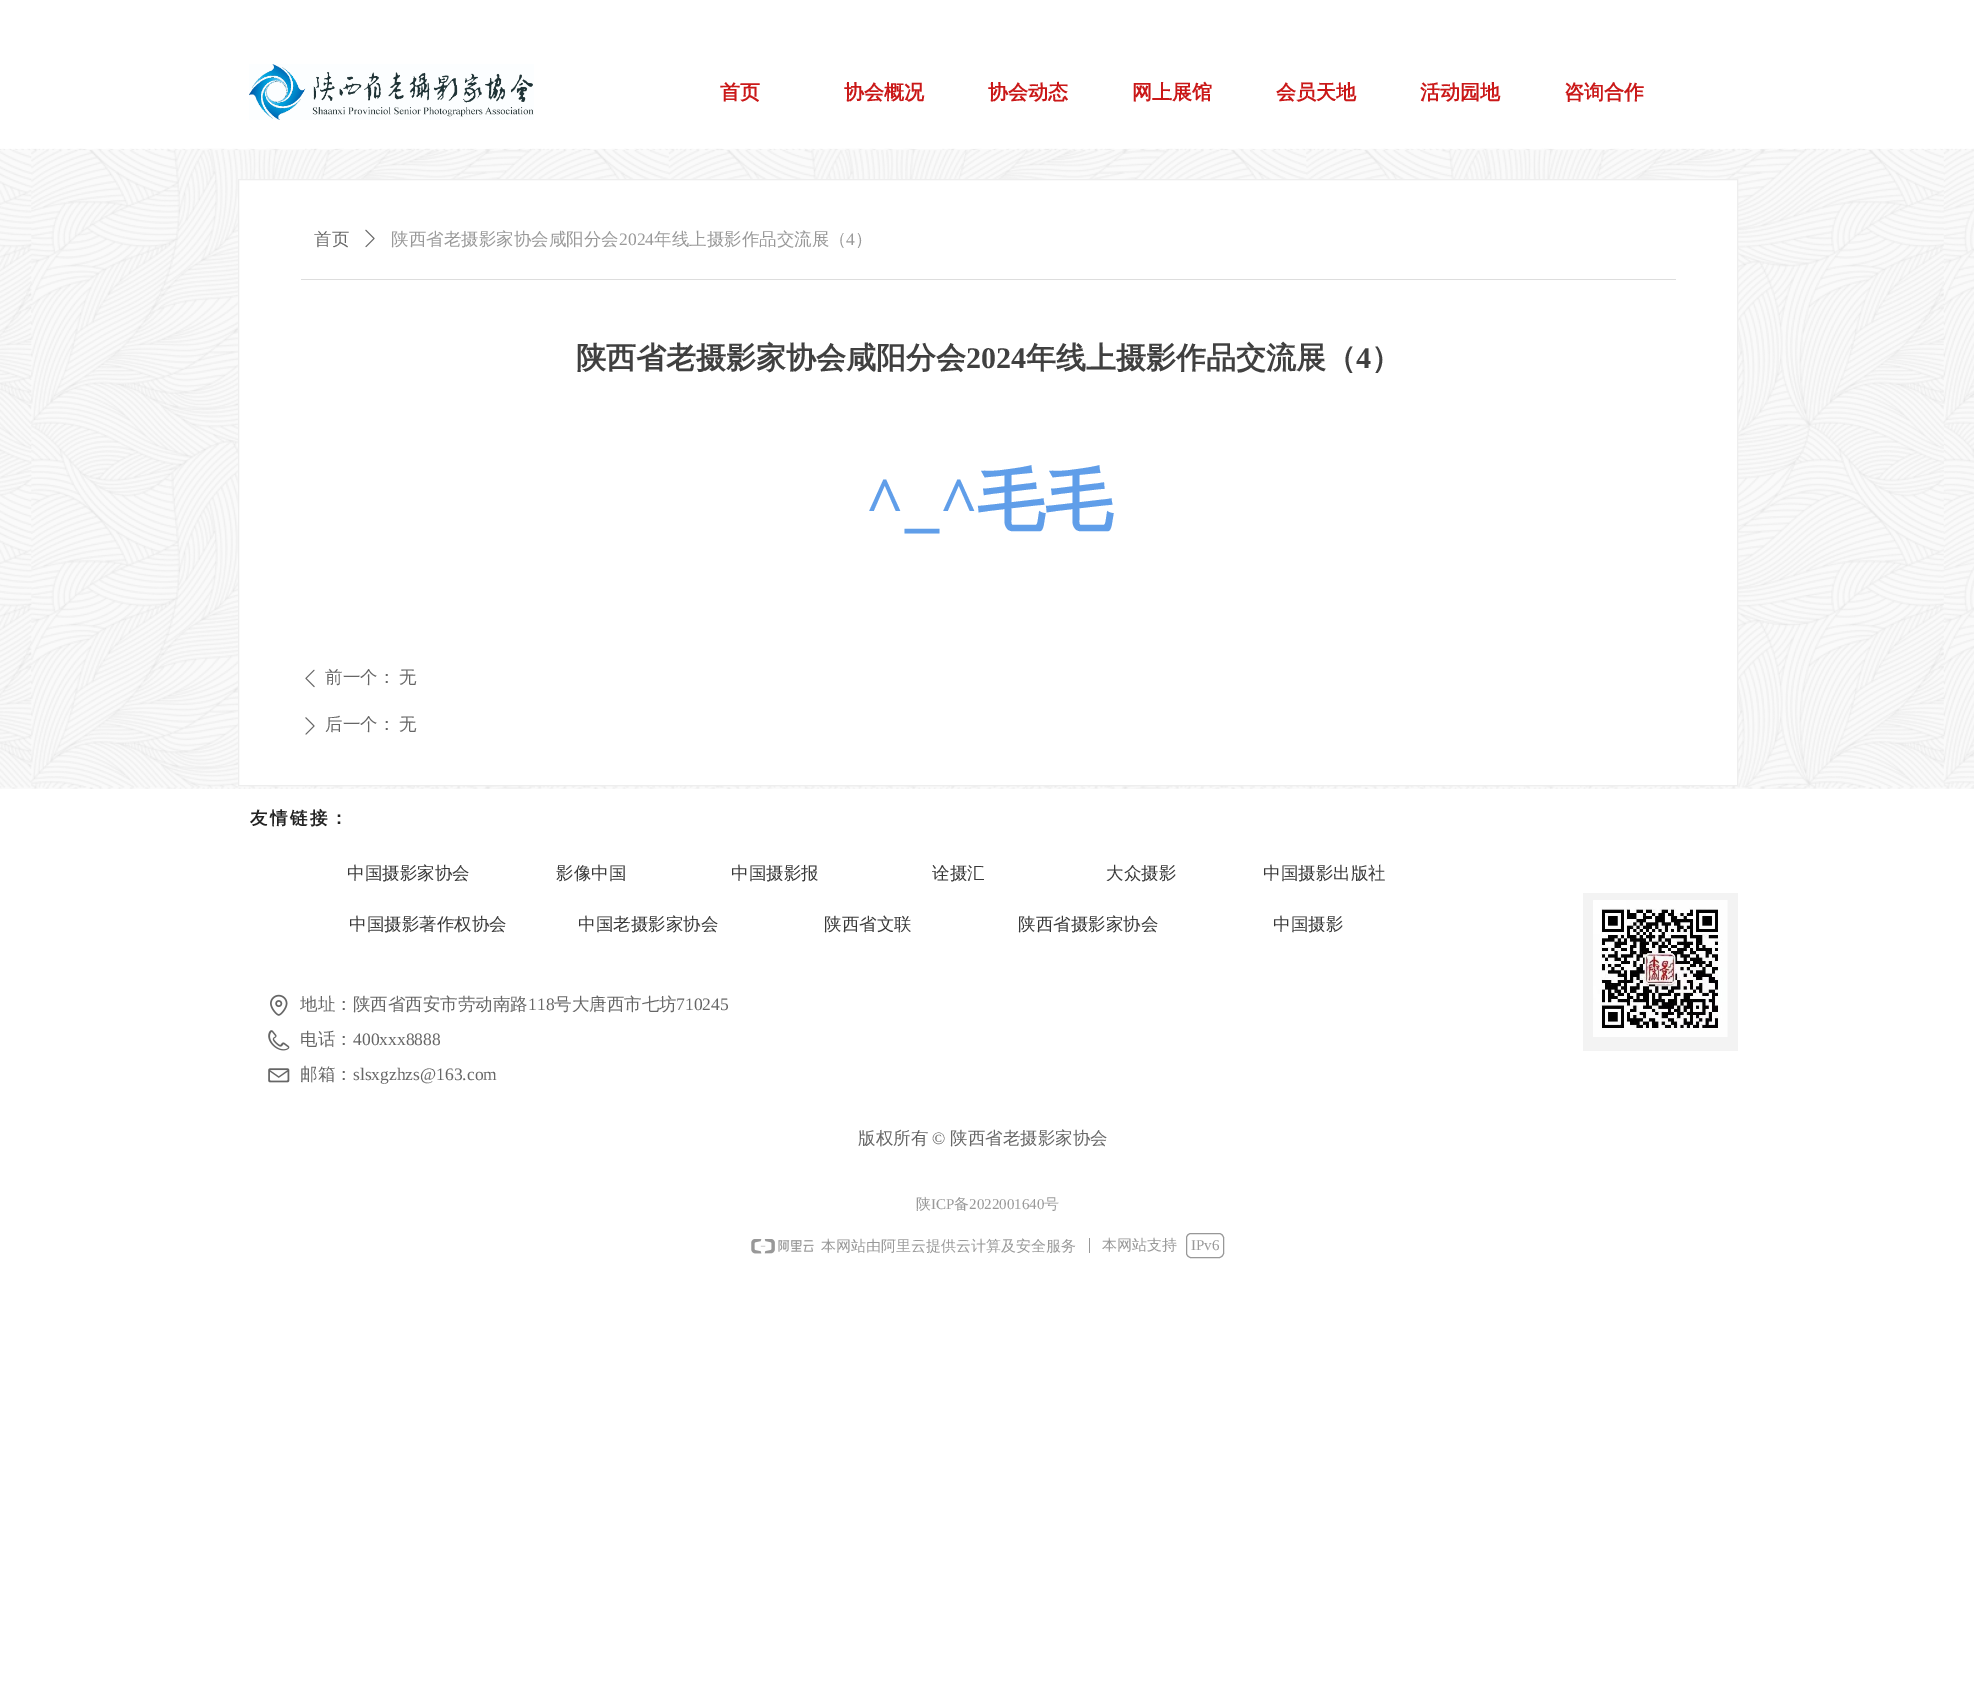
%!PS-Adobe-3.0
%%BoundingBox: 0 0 1974 1683
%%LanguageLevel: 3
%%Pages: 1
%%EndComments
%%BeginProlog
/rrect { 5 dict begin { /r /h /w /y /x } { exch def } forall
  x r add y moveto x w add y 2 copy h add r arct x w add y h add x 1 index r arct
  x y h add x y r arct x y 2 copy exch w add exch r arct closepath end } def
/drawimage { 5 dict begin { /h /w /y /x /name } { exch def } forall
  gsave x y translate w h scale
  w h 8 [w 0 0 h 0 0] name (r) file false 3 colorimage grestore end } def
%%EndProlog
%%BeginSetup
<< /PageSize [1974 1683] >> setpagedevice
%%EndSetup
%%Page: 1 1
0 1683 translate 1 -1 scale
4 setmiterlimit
1 setgray
0 0 1974 1683 rectfill
(images/1.raw) 249 64 285 56 drawimage
0.98 setgray
0 149 1974 640 rectfill
(images/2.raw) 0 148 1974 641 drawimage
1 setgray
newpath 238.5 179.5 moveto 1737.5 179.5 lineto 1737.5 785.5 lineto 238.5 785.5 lineto closepath gsave fill grestore
0.933 setgray
stroke
(images/3.raw) 365 229 10 19 drawimage
0.867 setgray
301 279 1375 1 rectfill
(images/4.raw) 305 669 10 19 drawimage
(images/5.raw) 305 717 10 18 drawimage
0.953 setgray
1583 893 155 158 rectfill
(images/6.raw) 1593 900 135 137 drawimage
(images/7.raw) 270 994 18 22 drawimage
(images/8.raw) 268 1030 22 21 drawimage
(images/9.raw) 268 1068 22 15 drawimage
(images/10.raw) 751 1239 63 15 drawimage
0.596 setgray
1089 1238 1 15 rectfill
1186.5 1233.5 37 24 4.5 rrect stroke
/WenQuanYiZenHei-Bold [20 0 0 -20 0 0] selectfont
0.792 0.094 0.094 setrgbcolor
720 99 moveto (首页) show
844 99 moveto (协会概况) show
988 99 moveto (协会动态) show
1132 99 moveto (网上展馆) show
1276 99 moveto (会员天地) show
1420 99 moveto (活动园地) show
1564 99 moveto (咨询合作) show
/WenQuanYiZenHei-Medium [17.5 0 0 -17.5 0 0] selectfont
0.4 setgray
314 245 moveto (首页) show
0.6 setgray
391 245 moveto (陕西省老摄影家协会咸阳分会) show
/LiberationSerif-Regular [17.5 0 0 -17.5 0 0] selectfont
619 245 moveto (2024) show
/WenQuanYiZenHei-Medium [17.5 0 0 -17.5 0 0] selectfont
654 245 moveto (年线上摄影作品交流展（) show
/LiberationSerif-Regular [17.5 0 0 -17.5 0 0] selectfont
846 245 moveto (4) show
/WenQuanYiZenHei-Medium [17.5 0 0 -17.5 0 0] selectfont
855 245 moveto (）) show
/WenQuanYiZenHei-Bold [30 0 0 -30 0 0] selectfont
0.251 setgray
576 368 moveto (陕西省老摄影家协会咸阳分会) show
/LiberationSerif-Bold [30 0 0 -30 0 0] selectfont
966 368 moveto (2024) show
/WenQuanYiZenHei-Bold [30 0 0 -30 0 0] selectfont
1026 368 moveto (年线上摄影作品交流展（) show
/LiberationSerif-Bold [30 0 0 -30 0 0] selectfont
1356 368 moveto (4) show
/WenQuanYiZenHei-Bold [30 0 0 -30 0 0] selectfont
1371 368 moveto (）) show
/LiberationSerif-Bold [68 0 0 -68 0 0] selectfont
0.376 0.62 0.914 setrgbcolor
865 524 moveto (^_^) show
/WenQuanYiZenHei-Bold [68 0 0 -68 0 0] selectfont
977 524 moveto (毛毛) show
/WenQuanYiZenHei-Medium [17.5 0 0 -17.5 0 0] selectfont
0.4 setgray
325 683 moveto (前一个：) show
399 683 moveto (无) show
325 730 moveto (后一个：) show
399 730 moveto (无) show
/WenQuanYiZenHei-Bold [17.5 0 0 -17.5 0 0] selectfont
0.133 setgray
250 824 moveto 2.5 0 (友情链接：) ashow
/WenQuanYiZenHei-Medium [17.5 0 0 -17.5 0 0] selectfont
0.22 setgray
347 879 moveto (中国摄影家协会) show
556 879 moveto (影像中国) show
731 879 moveto (中国摄影报) show
932 879 moveto (诠摄汇) show
1106 879 moveto (大众摄影) show
1263 879 moveto (中国摄影出版社) show
349 930 moveto (中国摄影著作权协会) show
578 930 moveto (中国老摄影家协会) show
824 930 moveto (陕西省文联) show
1018 930 moveto (陕西省摄影家协会) show
1273 930 moveto (中国摄影) show
0.4 setgray
300 1010 moveto (地址：陕西省西安市劳动南路) show
/LiberationSerif-Regular [17.5 0 0 -17.5 0 0] selectfont
528 1010 moveto (118) show
/WenQuanYiZenHei-Medium [17.5 0 0 -17.5 0 0] selectfont
554 1010 moveto (号大唐西市七坊) show
/LiberationSerif-Regular [17.5 0 0 -17.5 0 0] selectfont
676 1010 moveto (710245) show
/WenQuanYiZenHei-Medium [17.5 0 0 -17.5 0 0] selectfont
300 1045 moveto (电话：) show
/LiberationSerif-Regular [17.5 0 0 -17.5 0 0] selectfont
353 1045 moveto (400xxx8888) show
/WenQuanYiZenHei-Medium [17.5 0 0 -17.5 0 0] selectfont
300 1080 moveto (邮箱：) show
/LiberationSerif-Regular [17.5 0 0 -17.5 0 0] selectfont
353 1080 moveto (slsxgzhzs@163.com) show
/WenQuanYiZenHei-Medium [17.5 0 0 -17.5 0 0] selectfont
858 1144 moveto (版权所有) show
/LiberationSerif-Regular [17.5 0 0 -17.5 0 0] selectfont
932 1144 moveto (©) show
/WenQuanYiZenHei-Medium [17.5 0 0 -17.5 0 0] selectfont
950 1144 moveto (陕西省老摄影家协会) show
/WenQuanYiZenHei-Medium [15 0 0 -15 0 0] selectfont
0.6 setgray
916 1209 moveto (陕) show
/LiberationSerif-Regular [15 0 0 -15 0 0] selectfont
931 1209 moveto (ICP) show
/WenQuanYiZenHei-Medium [15 0 0 -15 0 0] selectfont
954 1209 moveto (备) show
/LiberationSerif-Regular [15 0 0 -15 0 0] selectfont
969 1209 moveto (2022001640) show
/WenQuanYiZenHei-Medium [15 0 0 -15 0 0] selectfont
1044 1209 moveto (号) show
821 1251 moveto (本网站由阿里云提供云计算及安全服务) show
1102 1250 moveto (本网站支持) show
/LiberationSerif-Regular [15 0 0 -15 0 0] selectfont
1191 1250 moveto (IPv6) show
showpage
%%EOF
